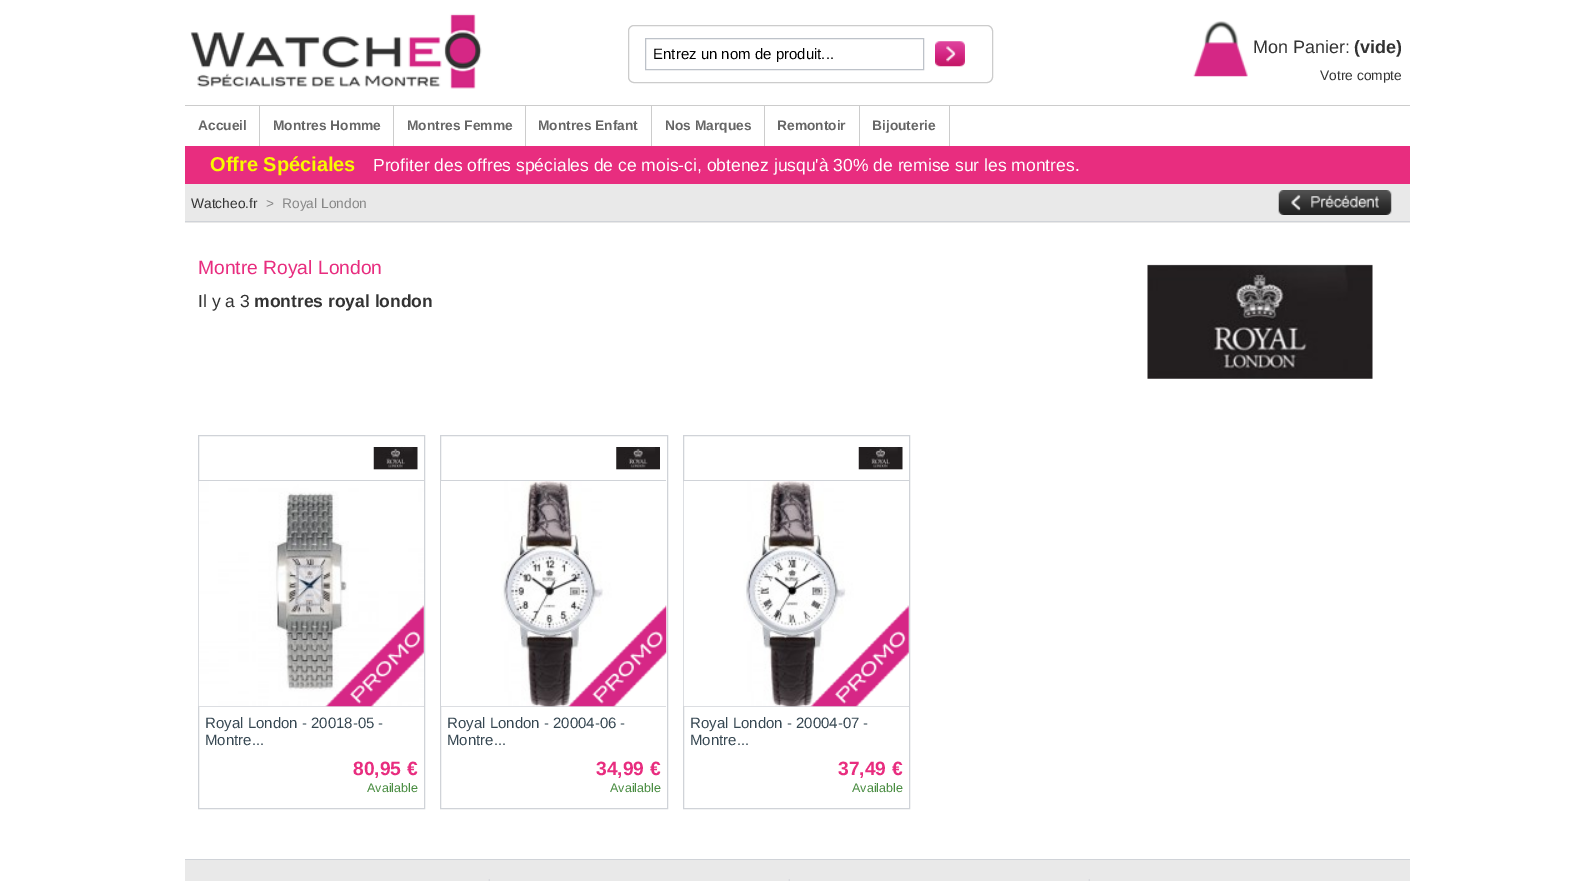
%!PS-Adobe-3.0
%%BoundingBox: 0 0 1594 881
%%LanguageLevel: 3
%%Pages: 1
%%EndComments
%%BeginProlog
/rrect { 5 dict begin { /r /h /w /y /x } { exch def } forall
  x r add y moveto x w add y 2 copy h add r arct x w add y h add x 1 index r arct
  x y h add x y r arct x y 2 copy exch w add exch r arct closepath end } def
/drawimage { 5 dict begin { /h /w /y /x /name } { exch def } forall
  gsave x y translate w h scale
  w h 8 [w 0 0 h 0 0] name (r) file false 3 colorimage grestore end } def
%%EndProlog
%%BeginSetup
<< /PageSize [1594 881] >> setpagedevice
%%EndSetup
%%Page: 1 1
0 881 translate 1 -1 scale
4 setmiterlimit
1 setgray
0 0 1594 881 rectfill
(images/1.raw) 190 13 292 76 drawimage
0.8 setgray
628.5 25.5 364 57 5.5 rrect stroke
0.741 0.761 0.788 setrgbcolor
645.5 38.5 278 31 rectstroke
(images/2.raw) 935 41 30 26 drawimage
(images/3.raw) 1193 21 55 56 drawimage
0.8 setgray
185 105 1225 1 rectfill
259 106 1 40 rectfill
393 106 1 40 rectfill
525 106 1 40 rectfill
651 106 1 40 rectfill
764 106 1 40 rectfill
859 106 1 40 rectfill
949 106 1 40 rectfill
0.91 0.176 0.498 setrgbcolor
185 146 1225 38 rectfill
0.914 setgray
185 184 1225 39 rectfill
0.816 0.827 0.847 setrgbcolor
185 221 1225 1 rectfill
(images/4.raw) 1278 190 114 25 drawimage
(images/5.raw) 1147 264 226 115 drawimage
198.5 435.5 226 373 rectstroke
(images/6.raw) 373 445 45 25 drawimage
199 480 225 1 rectfill
199 706 225 1 rectfill
(images/7.raw) 198 481 226 226 drawimage
(images/8.raw) 325 605 99 102 drawimage
440.5 435.5 227 373 rectstroke
(images/9.raw) 616 445 44 25 drawimage
441 480 225 1 rectfill
441 706 225 1 rectfill
(images/10.raw) 441 481 225 226 drawimage
(images/11.raw) 567 605 100 102 drawimage
683.5 435.5 226 373 rectstroke
(images/6.raw) 858 445 45 25 drawimage
684 480 225 1 rectfill
684 706 225 1 rectfill
(images/12.raw) 683 481 226 226 drawimage
(images/13.raw) 810 605 99 102 drawimage
185 859 1225 1 rectfill
0.914 setgray
185 860 1225 21 rectfill
(images/14.raw) 488 879 2 2 drawimage
(images/14.raw) 788 879 2 2 drawimage
(images/14.raw) 1088 879 2 2 drawimage
/LiberationSans-Regular [15 0 0 -15 0 0] selectfont
0 setgray
653 59 moveto (Entrez un nom de produit...) show
/LiberationSans-Regular [18 0 0 -18 0 0] selectfont
0.2 setgray
1253 53 moveto (Mon Panier:) show
/LiberationSans-Bold [18 0 0 -18 0 0] selectfont
1354 53 moveto (\(vide\)) show
/LiberationSans-Regular [13.75 0 0 -13.75 0 0] selectfont
1320 80 moveto (Votre compte) show
/LiberationSans-Bold [13.75 0 0 -13.75 0 0] selectfont
0.4 setgray
198 130 moveto (Accueil) show
273 130 moveto (Montres Homme) show
407 130 moveto (Montres Femme) show
538 130 moveto (Montres Enfant) show
665 130 moveto (Nos Marques) show
777 130 moveto (Remontoir) show
872 130 moveto (Bijouterie) show
/LiberationSans-Bold [20 0 0 -20 0 0] selectfont
0.973 0.98 0 setrgbcolor
210 171 moveto (Offre Spéciales) show
/LiberationSans-Regular [17.5 0 0 -17.5 0 0] selectfont
1 setgray
373 171 moveto (Profiter des offres spéciales de ce mois-ci, obtenez jusqu'à 30% de remise sur les montres.) show
/LiberationSans-Regular [13.75 0 0 -13.75 0 0] selectfont
0.2 setgray
191 208 moveto (Watcheo.fr) show
0.533 setgray
266 208 moveto (>) show
282 208 moveto (Royal London) show
/LiberationSans-Regular [19.25 0 0 -19.25 0 0] selectfont
0.91 0.176 0.498 setrgbcolor
198 274 moveto (Montre Royal London) show
/LiberationSans-Regular [17.5 0 0 -17.5 0 0] selectfont
0.2 setgray
198 307 moveto (Il y a 3) show
/LiberationSans-Bold [17.5 0 0 -17.5 0 0] selectfont
254 307 moveto (montres royal london) show
/LiberationSans-Regular [15 0 0 -15 0 0] selectfont
0.216 0.282 0.325 setrgbcolor
205 728 moveto (Royal London - 20018-05 -) show
205 745 moveto (Montre...) show
/LiberationSans-Bold [19.25 0 0 -19.25 0 0] selectfont
0.91 0.176 0.498 setrgbcolor
353 775 moveto (80,95 €) show
/LiberationSans-Regular [12.5 0 0 -12.5 0 0] selectfont
0.282 0.549 0.251 setrgbcolor
367 792 moveto (Available) show
/LiberationSans-Regular [15 0 0 -15 0 0] selectfont
0.216 0.282 0.325 setrgbcolor
447 728 moveto (Royal London - 20004-06 -) show
447 745 moveto (Montre...) show
/LiberationSans-Bold [19.25 0 0 -19.25 0 0] selectfont
0.91 0.176 0.498 setrgbcolor
596 775 moveto (34,99 €) show
/LiberationSans-Regular [12.5 0 0 -12.5 0 0] selectfont
0.282 0.549 0.251 setrgbcolor
610 792 moveto (Available) show
/LiberationSans-Regular [15 0 0 -15 0 0] selectfont
0.216 0.282 0.325 setrgbcolor
690 728 moveto (Royal London - 20004-07 -) show
690 745 moveto (Montre...) show
/LiberationSans-Bold [19.25 0 0 -19.25 0 0] selectfont
0.91 0.176 0.498 setrgbcolor
838 775 moveto (37,49 €) show
/LiberationSans-Regular [12.5 0 0 -12.5 0 0] selectfont
0.282 0.549 0.251 setrgbcolor
852 792 moveto (Available) show
showpage
%%EOF
